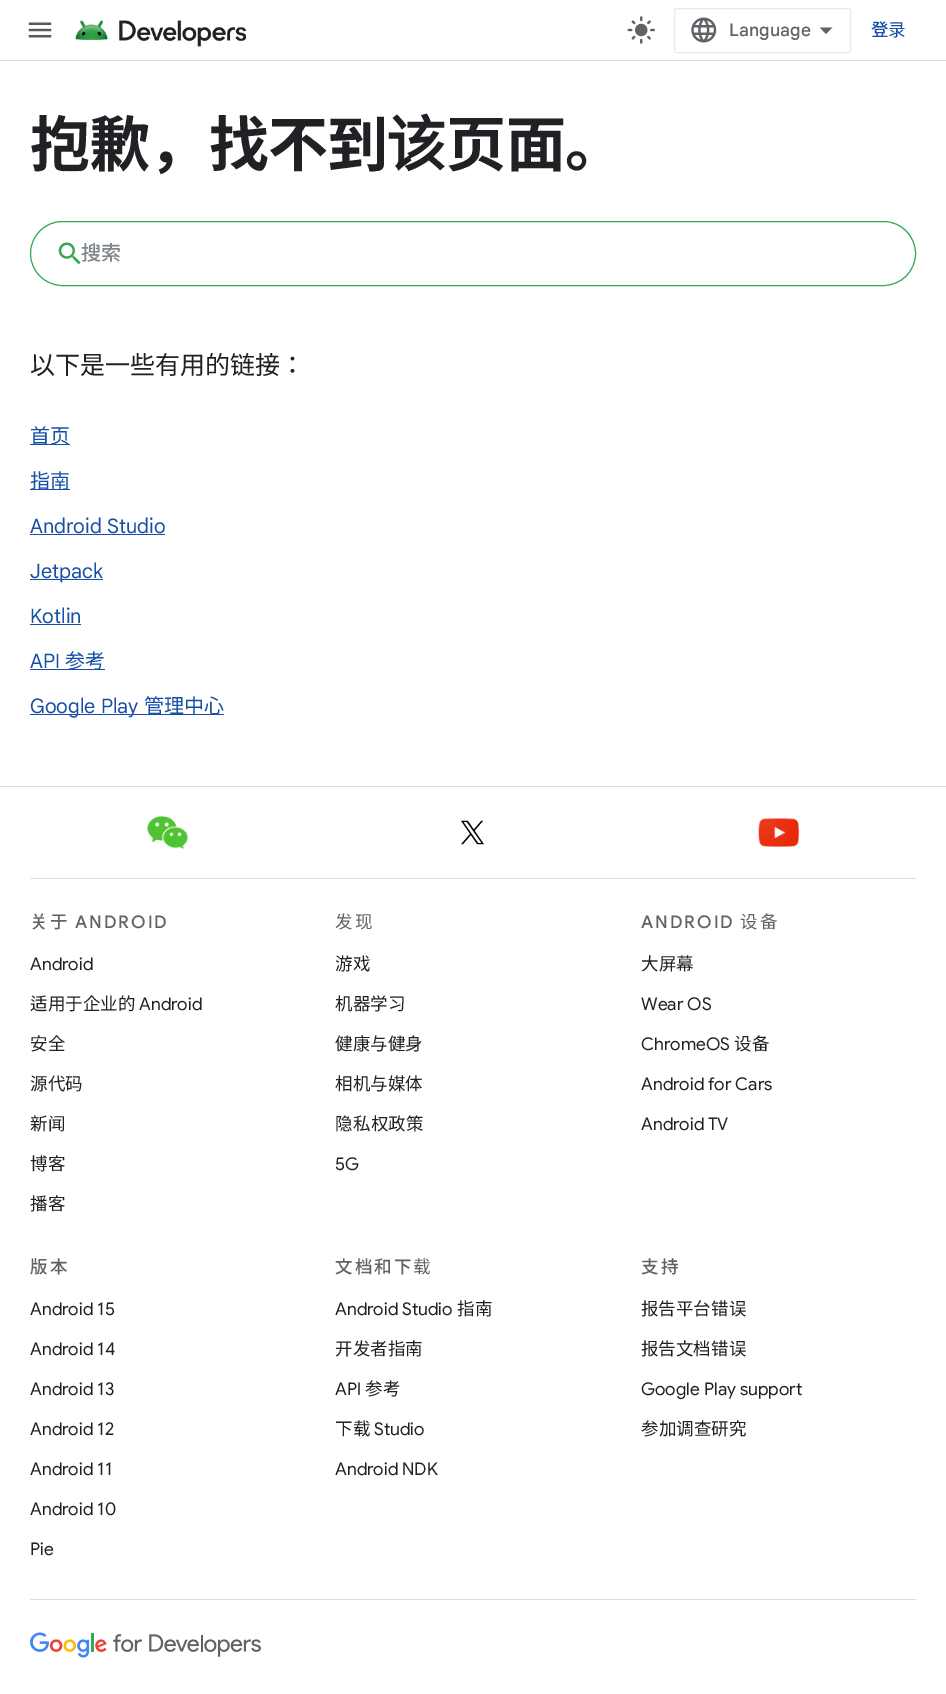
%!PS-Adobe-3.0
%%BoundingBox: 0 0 946 1694
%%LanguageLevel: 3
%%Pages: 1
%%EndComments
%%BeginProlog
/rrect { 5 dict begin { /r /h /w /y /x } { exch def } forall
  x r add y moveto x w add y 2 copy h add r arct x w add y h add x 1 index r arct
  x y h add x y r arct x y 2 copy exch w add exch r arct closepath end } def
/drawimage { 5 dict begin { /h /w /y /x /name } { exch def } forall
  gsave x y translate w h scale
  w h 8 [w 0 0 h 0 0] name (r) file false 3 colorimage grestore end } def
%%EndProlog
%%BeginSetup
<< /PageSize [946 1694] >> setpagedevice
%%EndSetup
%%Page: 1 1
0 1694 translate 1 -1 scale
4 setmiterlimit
1 setgray
0 0 946 1694 rectfill
0.855 0.863 0.878 setrgbcolor
0 60 946 1 rectfill
(images/1.raw) 28 22 24 16 drawimage
(images/2.raw) 75 20 171 27 drawimage
(images/3.raw) 627 16 28 28 drawimage
0.91 0.918 0.929 setrgbcolor
674.5 8.5 176 44 2 rrect stroke
(images/4.raw) 691 17 26 26 drawimage
0.373 0.388 0.408 setrgbcolor
newpath 826 34 moveto 820 27.5 lineto 832.5 27.5 lineto closepath fill
0.204 0.659 0.325 setrgbcolor
30.5 221.5 885 64 32 rrect stroke
(images/5.raw) 58 242 23 23 drawimage
0.09 0.306 0.651 setrgbcolor
30 444 40 1 rectfill
30 489 40 1 rectfill
30 534 135 1 rectfill
30 579 73 1 rectfill
30 624 51 1 rectfill
30 669 75 1 rectfill
30 714 194 1 rectfill
0.855 0.863 0.878 setrgbcolor
0 786 946 1 rectfill
30 878 886 1 rectfill
(images/6.raw) 147 815 41 35 drawimage
(images/7.raw) 461 820 23 25 drawimage
(images/8.raw) 758 818 41 29 drawimage
30 1599 886 1 rectfill
(images/9.raw) 30 1632 231 26 drawimage
/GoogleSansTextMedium-Medium [17.5 0 0 -17.5 0 0] selectfont
0.373 0.388 0.408 setrgbcolor
729 36 moveto (Language) show
/NotoSansJP-Medium [17.5 0 0 -17.5 0 0] selectfont
0.09 0.306 0.651 setrgbcolor
871 36 moveto (登) show
/NotoSansCJKSC-Regular [17.5 0 0 -17.5 0 0] selectfont
888 36 moveto (录) show
/NotoSansJP-Bold [60 0 0 -60 0 0] selectfont
0.125 0.129 0.141 setrgbcolor
30 166 moveto -0.5 0 (抱歉，找不到) ashow
/NotoSansCJKSC-Bold [60 0 0 -60 0 0] selectfont
386 166 moveto -0.5 0 (该) ashow
/NotoSansJP-Bold [60 0 0 -60 0 0] selectfont
446 166 moveto -0.5 0 (页面。) ashow
/NotoSansJP-Medium [20 0 0 -20 0 0] selectfont
0.502 0.525 0.545 setrgbcolor
81 260 moveto (搜索) show
/NotoSansJP-Regular [25 0 0 -25 0 0] selectfont
0.125 0.129 0.141 setrgbcolor
30 374 moveto (以下是一些有用的) show
/NotoSansCJKSC-Regular [25 0 0 -25 0 0] selectfont
230 374 moveto (链) show
/NotoSansJP-Regular [25 0 0 -25 0 0] selectfont
255 374 moveto (接：) show
/NotoSansJP-Regular [20 0 0 -20 0 0] selectfont
0.09 0.306 0.651 setrgbcolor
30 443 moveto (首页) show
30 488 moveto (指南) show
/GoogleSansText-Regular [20 0 0 -20 0 0] selectfont
30 533 moveto (Android Studio) show
30 578 moveto (Jetpack) show
30 623 moveto (Kotlin) show
30 668 moveto (API) show
/NotoSansJP-Regular [20 0 0 -20 0 0] selectfont
65 668 moveto (参考) show
/GoogleSansText-Regular [20 0 0 -20 0 0] selectfont
30 713 moveto (Google Play) show
/NotoSansJP-Regular [20 0 0 -20 0 0] selectfont
144 713 moveto (管理中心) show
/NotoSansJP-Medium [17.5 0 0 -17.5 0 0] selectfont
0.373 0.388 0.408 setrgbcolor
30 928 moveto 2 0 (关于) ashow
/GoogleSans-Medium [17.5 0 0 -17.5 0 0] selectfont
75 928 moveto 2 0 (ANDROID) ashow
/GoogleSans-Regular [17.5 0 0 -17.5 0 0] selectfont
0.125 0.129 0.141 setrgbcolor
30 970 moveto (Android) show
/NotoSansJP-Regular [17.5 0 0 -17.5 0 0] selectfont
30 1010 moveto (适用于企) show
/NotoSansCJKSC-Regular [17.5 0 0 -17.5 0 0] selectfont
100 1010 moveto (业) show
/NotoSansJP-Regular [17.5 0 0 -17.5 0 0] selectfont
118 1010 moveto (的) show
/GoogleSans-Regular [17.5 0 0 -17.5 0 0] selectfont
139 1010 moveto (Android) show
/NotoSansJP-Regular [17.5 0 0 -17.5 0 0] selectfont
30 1050 moveto (安全) show
30 1090 moveto (源代) show
/NotoSansCJKSC-Regular [17.5 0 0 -17.5 0 0] selectfont
65 1090 moveto (码) show
/NotoSansJP-Regular [17.5 0 0 -17.5 0 0] selectfont
30 1130 moveto (新) show
/NotoSansCJKSC-Regular [17.5 0 0 -17.5 0 0] selectfont
48 1130 moveto (闻) show
/NotoSansJP-Regular [17.5 0 0 -17.5 0 0] selectfont
30 1170 moveto (博客) show
30 1210 moveto (播客) show
/NotoSansCJKSC-Regular [17.5 0 0 -17.5 0 0] selectfont
0.373 0.388 0.408 setrgbcolor
335 928 moveto 2 0 (发现) ashow
/NotoSansJP-Regular [17.5 0 0 -17.5 0 0] selectfont
0.125 0.129 0.141 setrgbcolor
335 970 moveto (游) show
/NotoSansCJKSC-Regular [17.5 0 0 -17.5 0 0] selectfont
353 970 moveto (戏) show
/NotoSansJP-Regular [17.5 0 0 -17.5 0 0] selectfont
335 1010 moveto (机器学) show
/NotoSansCJKSC-Regular [17.5 0 0 -17.5 0 0] selectfont
388 1010 moveto (习) show
/NotoSansJP-Regular [17.5 0 0 -17.5 0 0] selectfont
335 1050 moveto (健康与健身) show
335 1090 moveto (相机与媒体) show
/NotoSansCJKSC-Regular [17.5 0 0 -17.5 0 0] selectfont
335 1130 moveto (隐) show
/NotoSansJP-Regular [17.5 0 0 -17.5 0 0] selectfont
353 1130 moveto (私权政策) show
/GoogleSans-Regular [17.5 0 0 -17.5 0 0] selectfont
335 1170 moveto (5G) show
/GoogleSans-Medium [17.5 0 0 -17.5 0 0] selectfont
0.373 0.388 0.408 setrgbcolor
641 928 moveto 2 0 (ANDROID) ashow
/NotoSansCJKSC-Regular [17.5 0 0 -17.5 0 0] selectfont
740 928 moveto 2 0 (设备) ashow
/NotoSansJP-Regular [17.5 0 0 -17.5 0 0] selectfont
0.125 0.129 0.141 setrgbcolor
641 970 moveto (大屏幕) show
/GoogleSans-Regular [17.5 0 0 -17.5 0 0] selectfont
641 1010 moveto (Wear OS) show
641 1050 moveto (ChromeOS) show
/NotoSansCJKSC-Regular [17.5 0 0 -17.5 0 0] selectfont
734 1050 moveto (设备) show
/GoogleSans-Regular [17.5 0 0 -17.5 0 0] selectfont
641 1090 moveto (Android for Cars) show
641 1130 moveto (Android TV) show
/NotoSansJP-Medium [17.5 0 0 -17.5 0 0] selectfont
0.373 0.388 0.408 setrgbcolor
30 1273 moveto 2 0 (版本) ashow
/GoogleSans-Regular [17.5 0 0 -17.5 0 0] selectfont
0.125 0.129 0.141 setrgbcolor
30 1315 moveto (Android 15) show
30 1355 moveto (Android 14) show
30 1395 moveto (Android 13) show
30 1435 moveto (Android 12) show
30 1475 moveto (Android 11) show
30 1515 moveto (Android 10) show
30 1555 moveto (Pie) show
/NotoSansJP-Medium [17.5 0 0 -17.5 0 0] selectfont
0.373 0.388 0.408 setrgbcolor
335 1273 moveto 2 0 (文档和下) ashow
/NotoSansCJKSC-Regular [17.5 0 0 -17.5 0 0] selectfont
413 1273 moveto 2 0 (载) ashow
/GoogleSans-Regular [17.5 0 0 -17.5 0 0] selectfont
0.125 0.129 0.141 setrgbcolor
335 1315 moveto (Android Studio) show
/NotoSansJP-Regular [17.5 0 0 -17.5 0 0] selectfont
457 1315 moveto (指南) show
335 1355 moveto (开) show
/NotoSansCJKSC-Regular [17.5 0 0 -17.5 0 0] selectfont
353 1355 moveto (发) show
/NotoSansJP-Regular [17.5 0 0 -17.5 0 0] selectfont
370 1355 moveto (者指南) show
/GoogleSans-Regular [17.5 0 0 -17.5 0 0] selectfont
335 1395 moveto (API) show
/NotoSansJP-Regular [17.5 0 0 -17.5 0 0] selectfont
365 1395 moveto (参考) show
335 1435 moveto (下) show
/NotoSansCJKSC-Regular [17.5 0 0 -17.5 0 0] selectfont
353 1435 moveto (载) show
/GoogleSans-Regular [17.5 0 0 -17.5 0 0] selectfont
374 1435 moveto (Studio) show
335 1475 moveto (Android NDK) show
/NotoSansJP-Medium [17.5 0 0 -17.5 0 0] selectfont
0.373 0.388 0.408 setrgbcolor
641 1273 moveto 2 0 (支持) ashow
/NotoSansCJKSC-Regular [17.5 0 0 -17.5 0 0] selectfont
0.125 0.129 0.141 setrgbcolor
641 1315 moveto (报) show
/NotoSansJP-Regular [17.5 0 0 -17.5 0 0] selectfont
658 1315 moveto (告平台) show
/NotoSansCJKSC-Regular [17.5 0 0 -17.5 0 0] selectfont
711 1315 moveto (错误) show
641 1355 moveto (报) show
/NotoSansJP-Regular [17.5 0 0 -17.5 0 0] selectfont
658 1355 moveto (告文档) show
/NotoSansCJKSC-Regular [17.5 0 0 -17.5 0 0] selectfont
711 1355 moveto (错误) show
/GoogleSans-Regular [17.5 0 0 -17.5 0 0] selectfont
641 1395 moveto (Google Play support) show
/NotoSansJP-Regular [17.5 0 0 -17.5 0 0] selectfont
641 1435 moveto (参加) show
/NotoSansCJKSC-Regular [17.5 0 0 -17.5 0 0] selectfont
676 1435 moveto (调查) show
/NotoSansJP-Regular [17.5 0 0 -17.5 0 0] selectfont
711 1435 moveto (研究) show
showpage
%%EOF
